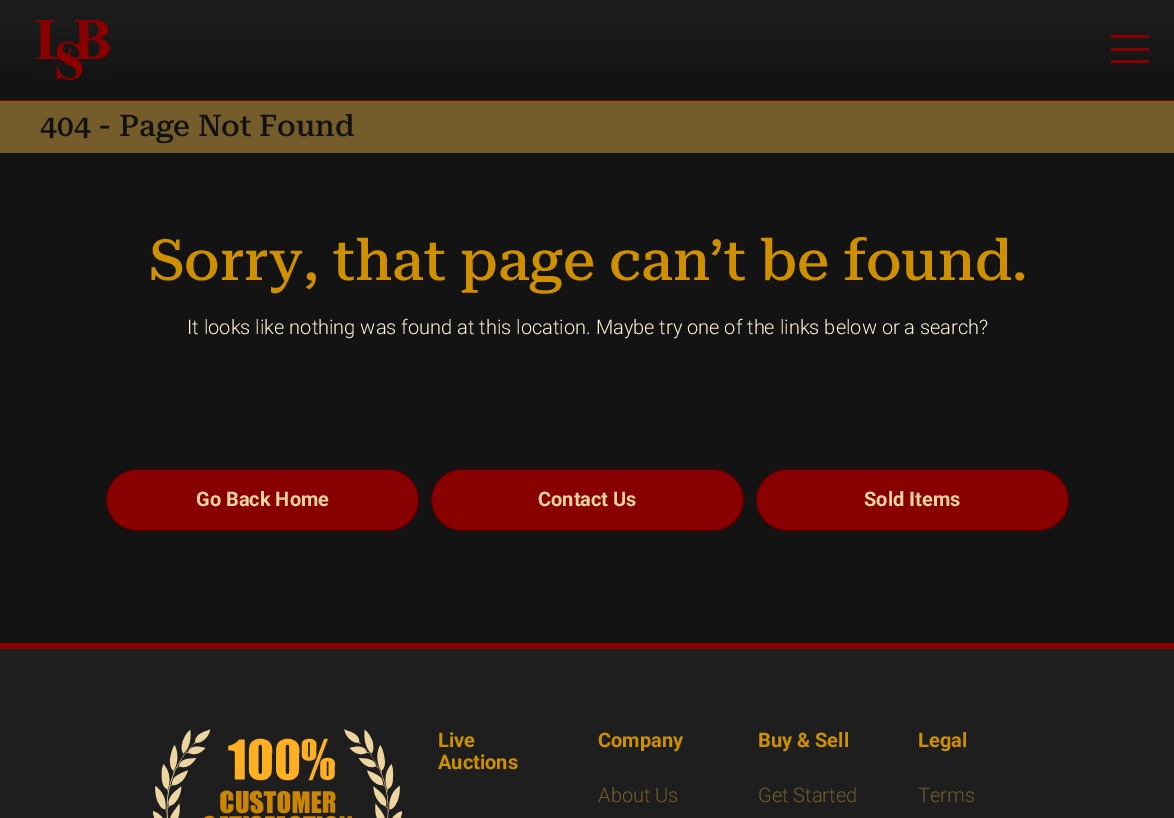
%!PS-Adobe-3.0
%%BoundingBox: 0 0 1174 818
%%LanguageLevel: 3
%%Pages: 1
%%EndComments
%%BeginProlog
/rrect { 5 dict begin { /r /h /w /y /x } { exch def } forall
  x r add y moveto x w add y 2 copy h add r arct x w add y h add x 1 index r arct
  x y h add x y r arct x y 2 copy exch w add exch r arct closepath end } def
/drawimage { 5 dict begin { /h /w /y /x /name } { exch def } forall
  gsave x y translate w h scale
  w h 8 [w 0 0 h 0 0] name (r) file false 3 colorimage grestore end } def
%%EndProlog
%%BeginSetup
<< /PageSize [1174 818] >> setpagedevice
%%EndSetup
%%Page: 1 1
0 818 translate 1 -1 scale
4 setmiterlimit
0.075 setgray
0 0 1174 818 rectfill
gsave newpath 0 0 moveto 1174 0 lineto 1174 65 lineto 0 65 lineto closepath clip newpath
<< /ShadingType 2 /ColorSpace /DeviceRGB /Coords [588 100 588 0] /Extend [true true] /Function << /FunctionType 2 /Domain [0 1] /C0 [0.067 0.067 0.067] /C1 [0.118 0.118 0.118] /N 1 >> >> shfill grestore
0.537 0 0 setrgbcolor
0 100 1174 1 rectfill
(images/1.raw) 35 20 75 60 drawimage
1111 35 38 3 rectfill
1111 48 38 3 rectfill
1111 60 38 3 rectfill
0.455 0.365 0.165 setrgbcolor
0 101 1174 52 rectfill
0.537 0 0 setrgbcolor
106.5 469.5 312 61 30.5 rrect gsave fill grestore
0.337 0 0 setrgbcolor
stroke
0.537 0 0 setrgbcolor
431.5 469.5 312 61 30.5 rrect gsave fill grestore
0.337 0 0 setrgbcolor
stroke
0.537 0 0 setrgbcolor
756.5 469.5 312 61 30.5 rrect gsave fill grestore
0.337 0 0 setrgbcolor
stroke
0.118 setgray
0 649 1174 169 rectfill
0.537 0 0 setrgbcolor
0 643 1174 6 rectfill
(images/2.raw) 153 729 250 89 drawimage
/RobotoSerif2-Medium [30 0 0 -30 0 0] selectfont
0.067 setgray
40 136 moveto (404 - Page Not Found) show
/RobotoSerif-Medium [57.25 0 0 -57.25 0 0] selectfont
0.812 0.565 0 setrgbcolor
149 280 moveto (Sorry, that page can’t be found.) show
/Roboto-Light [20 0 0 -20 0 0] selectfont
1 0.953 0.847 setrgbcolor
187 334 moveto (It looks like nothing was found at this location. Maybe try one of the links below or a search?) show
/Roboto-Bold [20 0 0 -20 0 0] selectfont
0.925 0.835 0.631 setrgbcolor
196 506 moveto (Go Back Home) show
538 506 moveto (Contact Us) show
864 506 moveto (Sold Items) show
0.812 0.565 0 setrgbcolor
438 747 moveto (Live) show
438 769 moveto (Auctions) show
598 747 moveto (Company) show
/Roboto-Light [20 0 0 -20 0 0] selectfont
0.455 0.365 0.165 setrgbcolor
598 802 moveto (About Us) show
/Roboto-Bold [20 0 0 -20 0 0] selectfont
0.812 0.565 0 setrgbcolor
758 747 moveto (Buy & Sell) show
/Roboto-Light [20 0 0 -20 0 0] selectfont
0.455 0.365 0.165 setrgbcolor
758 802 moveto (Get Started) show
/Roboto-Bold [20 0 0 -20 0 0] selectfont
0.812 0.565 0 setrgbcolor
918 747 moveto (Legal) show
/Roboto-Light [20 0 0 -20 0 0] selectfont
0.455 0.365 0.165 setrgbcolor
918 802 moveto (Terms) show
showpage
%%EOF
